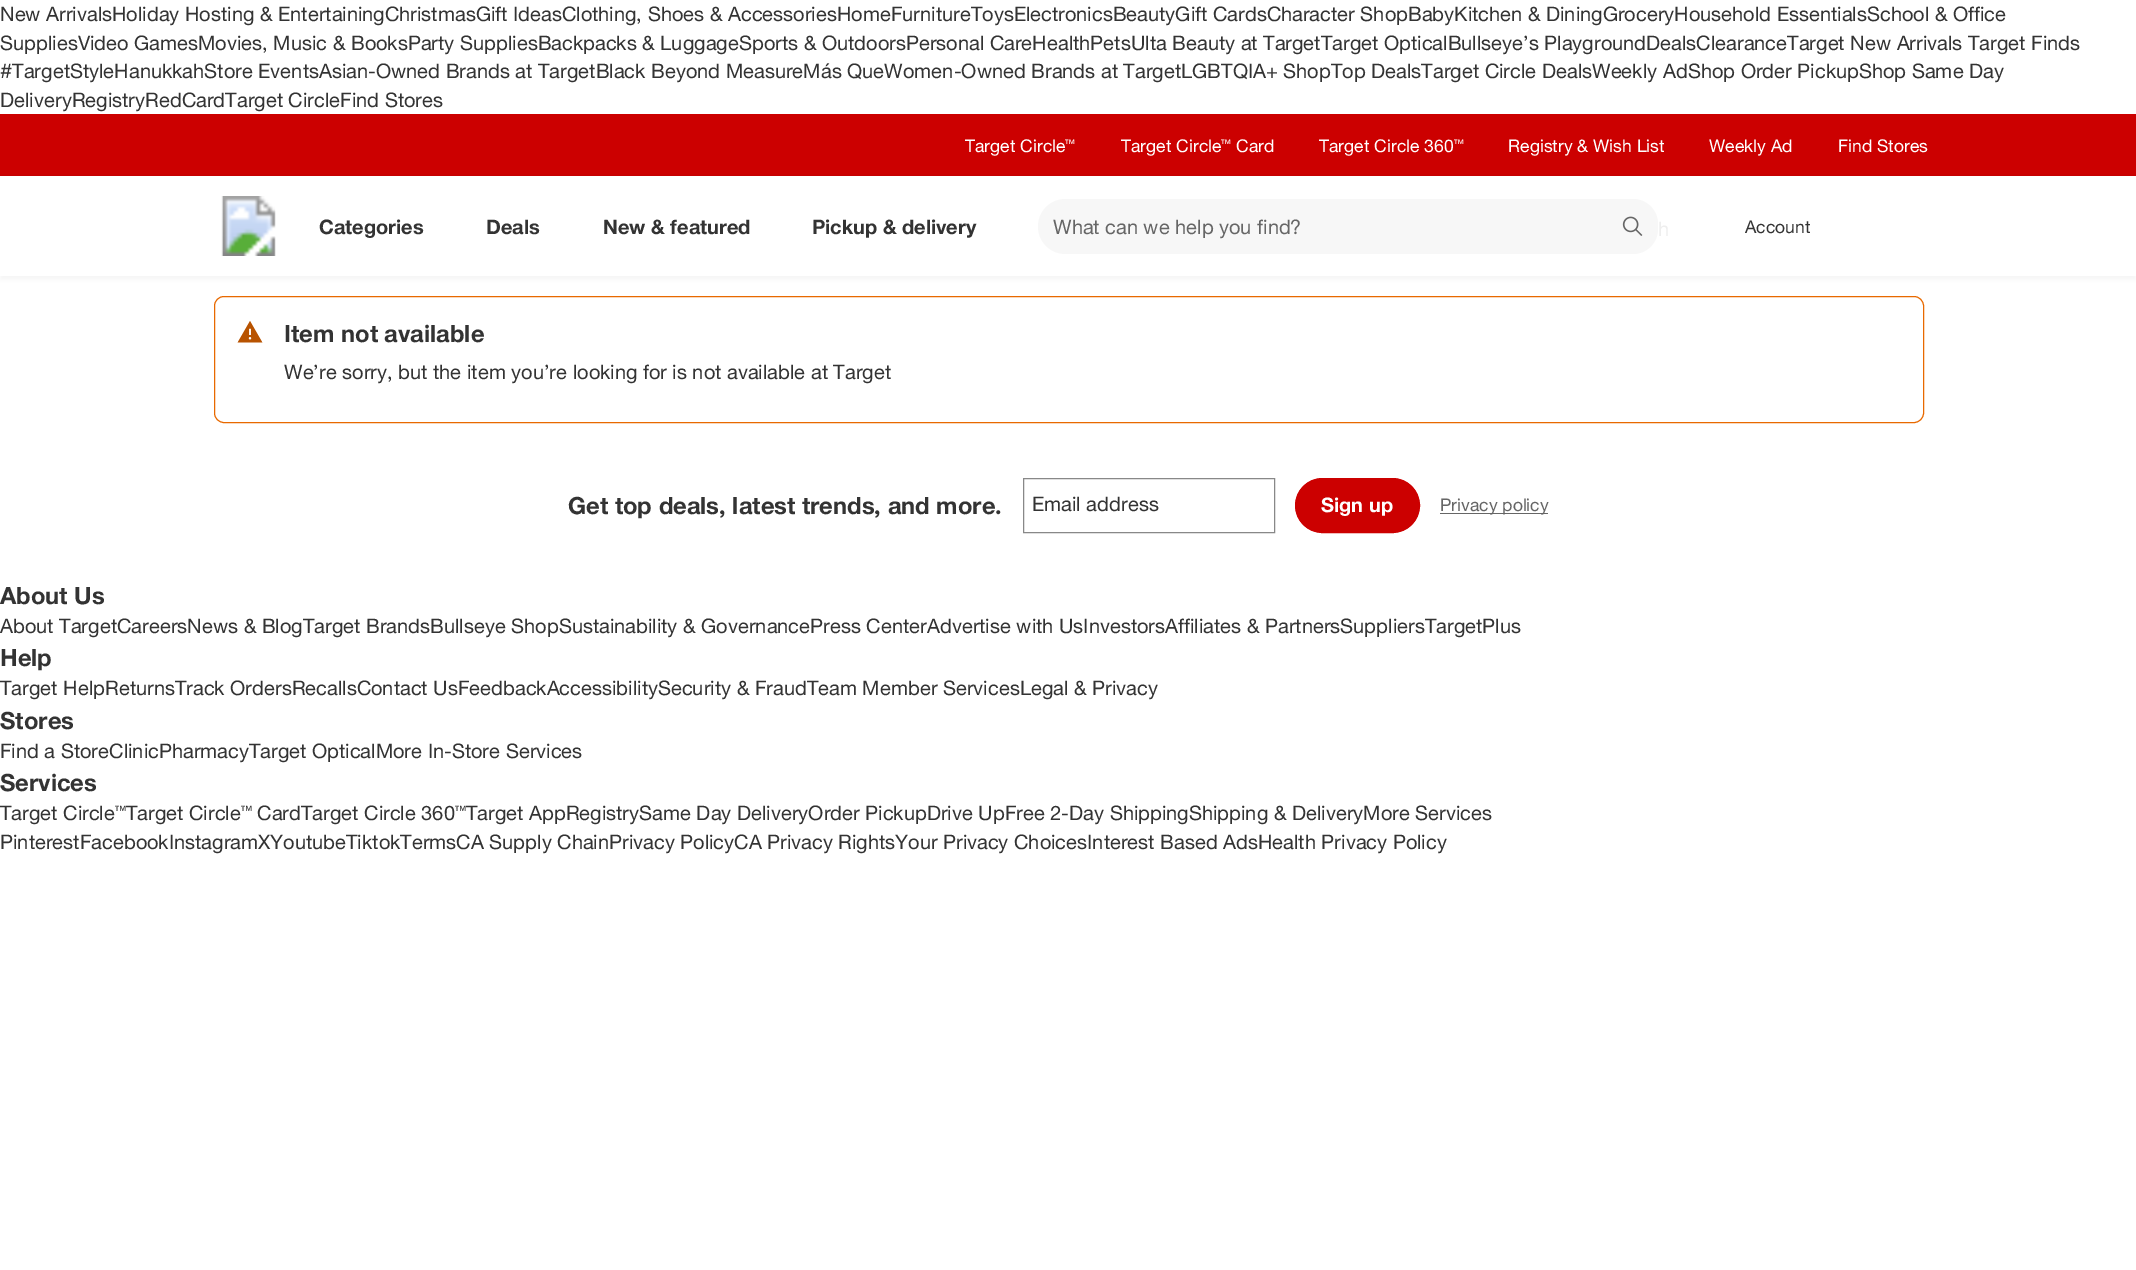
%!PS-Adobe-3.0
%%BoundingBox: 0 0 2136 1270
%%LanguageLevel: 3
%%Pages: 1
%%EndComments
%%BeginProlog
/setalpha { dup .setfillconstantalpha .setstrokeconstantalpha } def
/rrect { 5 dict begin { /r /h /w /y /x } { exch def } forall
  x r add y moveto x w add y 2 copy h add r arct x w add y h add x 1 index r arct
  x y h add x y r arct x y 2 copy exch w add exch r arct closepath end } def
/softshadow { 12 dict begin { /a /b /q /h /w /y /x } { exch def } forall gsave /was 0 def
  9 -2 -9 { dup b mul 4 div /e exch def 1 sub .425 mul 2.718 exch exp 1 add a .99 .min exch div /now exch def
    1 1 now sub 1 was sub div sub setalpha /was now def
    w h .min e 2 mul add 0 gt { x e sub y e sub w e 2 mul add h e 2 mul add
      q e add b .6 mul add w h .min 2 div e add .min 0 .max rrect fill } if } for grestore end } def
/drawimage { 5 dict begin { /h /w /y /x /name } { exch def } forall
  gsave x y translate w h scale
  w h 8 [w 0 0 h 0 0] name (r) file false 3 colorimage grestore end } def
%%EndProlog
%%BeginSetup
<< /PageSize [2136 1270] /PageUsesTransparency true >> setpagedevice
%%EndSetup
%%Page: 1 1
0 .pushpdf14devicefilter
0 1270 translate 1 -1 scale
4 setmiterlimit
1 setgray
0 0 2136 1270 rectfill
0.8 0 0 setrgbcolor
0 114 2136 62 rectfill
0 setgray
0 180 2136 100 0 2.5 0.04 softshadow
0 175 2136 100 0 1 0.04 softshadow
1 setgray
0 176 2136 100 rectfill
(images/1.raw) 221 196 55 60 drawimage
0.969 setgray
1038 199 620 55 27.5 rrect fill
1608 199 50 55 25 rrect fill
(images/2.raw) 1622 216 21 20 drawimage
0.91 0.412 0 setrgbcolor
214.5 296.5 1709 126 9.5 rrect stroke
(images/3.raw) 237 321 26 22 drawimage
0.533 setgray
1023.5 478.5 251 54 rectstroke
0.8 0 0 setrgbcolor
1295.5 478.5 124 54 27 rrect gsave fill grestore
stroke
0.4 setgray
1440 513 108 1 rectfill
/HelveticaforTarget-Regular [20 0 0 -20 0 0] selectfont
0.2 setgray
0 21 moveto (New ArrivalsHoliday Hosting & EntertainingChristmasGift IdeasClothing, Shoes & AccessoriesHomeFurnitureToysElectronicsBeautyGift CardsCharacter ShopBabyKitchen & DiningGroceryHousehold EssentialsSchool & Office) show
0 50 moveto (SuppliesVideo GamesMovies, Music & BooksParty SuppliesBackpacks & LuggageSports & OutdoorsPersonal CareHealthPetsUlta Beauty at TargetTarget OpticalBullseye’s PlaygroundDealsClearanceTarget New Arrivals Target Finds) show
0 78 moveto (#TargetStyleHanukkahStore EventsAsian-Owned Brands at TargetBlack Beyond MeasureMás QueWomen-Owned Brands at TargetLGBTQIA+ ShopTop DealsTarget Circle DealsWeekly AdShop Order PickupShop Same Day) show
0 107 moveto (DeliveryRegistryRedCardTarget CircleFind Stores) show
/HelveticaforTarget-Regular [17.5 0 0 -17.5 0 0] selectfont
1 setgray
965 152 moveto (Target Circle™) show
1121 152 moveto (Target Circle™ Card) show
1319 152 moveto (Target Circle 360™) show
1508 152 moveto (Registry & Wish List) show
1709 152 moveto (Weekly Ad) show
1838 152 moveto (Find Stores) show
/HelveticaforTarget-Bold [20 0 0 -20 0 0] selectfont
0.2 setgray
319 234 moveto (Categories) show
486 234 moveto (Deals) show
603 234 moveto (New & featured) show
812 234 moveto (Pickup & delivery) show
/HelveticaforTarget-Regular [20 0 0 -20 0 0] selectfont
0.4 setgray
1053 234 moveto (What can we help you find?) show
0.933 setgray
1658 236 moveto (h) show
/HelveticaforTarget-Regular [17.5 0 0 -17.5 0 0] selectfont
0.2 setgray
1745 233 moveto (Account) show
/HelveticaforTarget-Bold [23.75 0 0 -23.75 0 0] selectfont
284 342 moveto (Item not available) show
/HelveticaforTarget-Regular [20 0 0 -20 0 0] selectfont
284 379 moveto (We’re sorry, but the item you’re looking for is not available at Target) show
/HelveticaforTarget-Bold [23.75 0 0 -23.75 0 0] selectfont
568 514 moveto (Get top deals, latest trends, and more.) show
/HelveticaforTarget-Regular [20 0 0 -20 0 0] selectfont
1032 511 moveto (Email address) show
/HelveticaforTarget-Bold [20 0 0 -20 0 0] selectfont
1 setgray
1321 512 moveto (Sign up) show
/HelveticaforTarget-Regular [17.5 0 0 -17.5 0 0] selectfont
0.4 setgray
1440 511 moveto (Privacy policy) show
/HelveticaforTarget-Bold [23.75 0 0 -23.75 0 0] selectfont
0.2 setgray
0 604 moveto (About Us) show
/HelveticaforTarget-Regular [20 0 0 -20 0 0] selectfont
0 633 moveto (About TargetCareersNews & BlogTarget BrandsBullseye ShopSustainability & GovernancePress CenterAdvertise with UsInvestorsAffiliates & PartnersSuppliersTargetPlus) show
/HelveticaforTarget-Bold [23.75 0 0 -23.75 0 0] selectfont
0 666 moveto (Help) show
/HelveticaforTarget-Regular [20 0 0 -20 0 0] selectfont
0 695 moveto (Target HelpReturnsTrack OrdersRecallsContact UsFeedbackAccessibilitySecurity & FraudTeam Member ServicesLegal & Privacy) show
/HelveticaforTarget-Bold [23.75 0 0 -23.75 0 0] selectfont
0 729 moveto (Stores) show
/HelveticaforTarget-Regular [20 0 0 -20 0 0] selectfont
0 758 moveto (Find a StoreClinicPharmacyTarget OpticalMore In-Store Services) show
/HelveticaforTarget-Bold [23.75 0 0 -23.75 0 0] selectfont
0 791 moveto (Services) show
/HelveticaforTarget-Regular [20 0 0 -20 0 0] selectfont
0 820 moveto (Target Circle™Target Circle™ CardTarget Circle 360™Target AppRegistrySame Day DeliveryOrder PickupDrive UpFree 2-Day ShippingShipping & DeliveryMore Services) show
0 849 moveto (PinterestFacebookInstagramXYoutubeTiktokTermsCA Supply ChainPrivacy PolicyCA Privacy RightsYour Privacy ChoicesInterest Based AdsHealth Privacy Policy) show
.poppdf14devicefilter showpage
%%EOF
